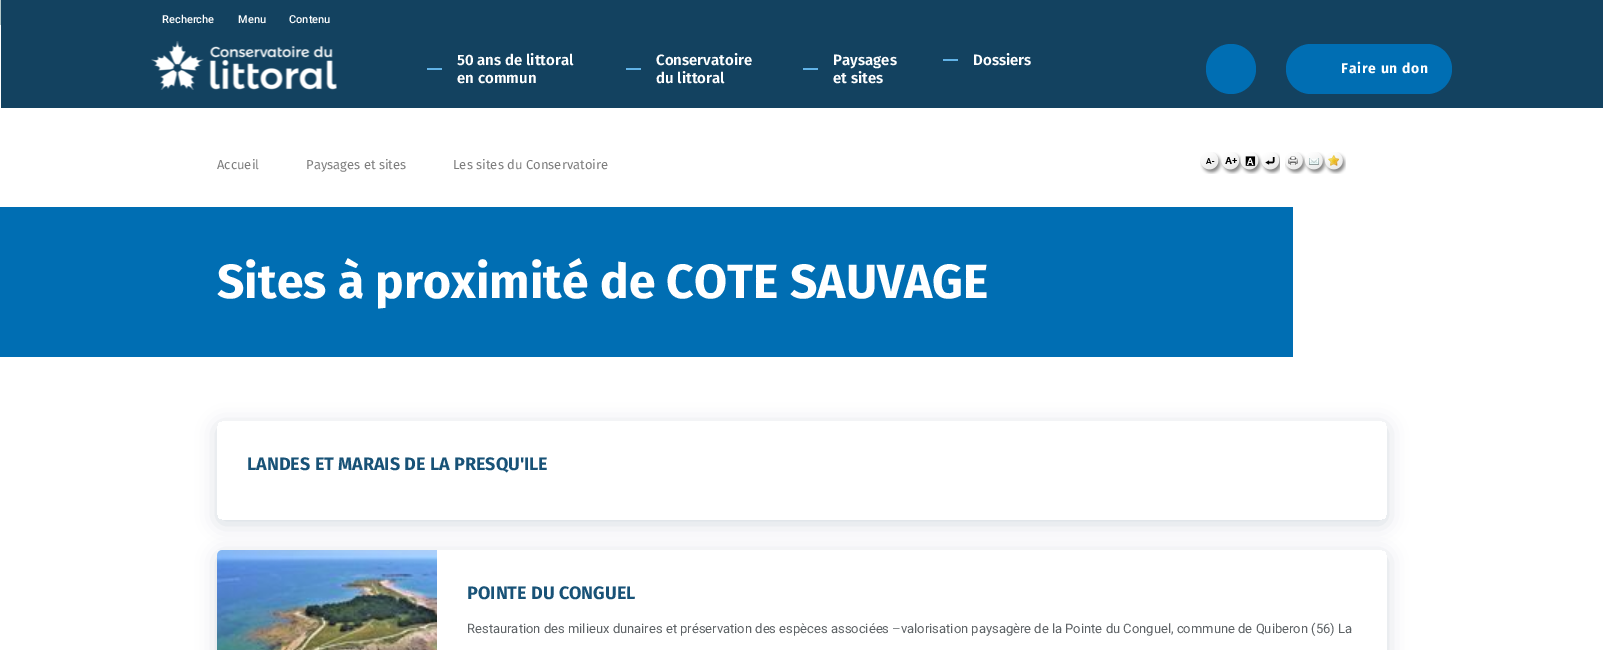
%!PS-Adobe-3.0
%%BoundingBox: 0 0 1603 650
%%LanguageLevel: 3
%%Pages: 1
%%EndComments
%%BeginProlog
/setalpha { dup .setfillconstantalpha .setstrokeconstantalpha } def
/rrect { 5 dict begin { /r /h /w /y /x } { exch def } forall
  x r add y moveto x w add y 2 copy h add r arct x w add y h add x 1 index r arct
  x y h add x y r arct x y 2 copy exch w add exch r arct closepath end } def
/softshadow { 12 dict begin { /a /b /q /h /w /y /x } { exch def } forall gsave /was 0 def
  9 -2 -9 { dup b mul 4 div /e exch def 1 sub .425 mul 2.718 exch exp 1 add a .99 .min exch div /now exch def
    1 1 now sub 1 was sub div sub setalpha /was now def
    w h .min e 2 mul add 0 gt { x e sub y e sub w e 2 mul add h e 2 mul add
      q e add b .6 mul add w h .min 2 div e add .min 0 .max rrect fill } if } for grestore end } def
/drawimage { 5 dict begin { /h /w /y /x /name } { exch def } forall
  gsave x y translate w h scale
  w h 8 [w 0 0 h 0 0] name (r) file false 3 colorimage grestore end } def
%%EndProlog
%%BeginSetup
<< /PageSize [1603 650] /PageUsesTransparency true >> setpagedevice
%%EndSetup
%%Page: 1 1
0 .pushpdf14devicefilter
0 650 translate 1 -1 scale
4 setmiterlimit
1 setgray
0 0 1603 650 rectfill
0.706 0.788 0.796 setrgbcolor
0 0 1 25 rectfill
0.075 0.259 0.376 setrgbcolor
1 0 1602 108 rectfill
(images/1.raw) 151 41 186 49 drawimage
0.384 0.702 0.906 setrgbcolor
427 68 15 2 rectfill
626 68 15 2 rectfill
803 68 15 2 rectfill
943 59 15 2 rectfill
0 0.431 0.702 setrgbcolor
newpath 1231 69 25 0 360 arc closepath fill
1286 44 166 50 25 rrect fill
(images/2.raw) 1200 152 21 22 drawimage
(images/3.raw) 1221 152 19 22 drawimage
(images/4.raw) 1240 152 20 22 drawimage
(images/5.raw) 1260 152 20 22 drawimage
(images/6.raw) 1285 152 19 22 drawimage
(images/7.raw) 1304 152 20 22 drawimage
(images/8.raw) 1324 152 22 22 drawimage
217 207 1076 150 rectfill
gsave
newpath 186 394 moveto 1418 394 lineto 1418 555 lineto 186 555 lineto closepath 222 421 moveto 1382 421 lineto 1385 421 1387 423 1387 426 curveto 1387 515 lineto 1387 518 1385 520 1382 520 curveto 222 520 lineto 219 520 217 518 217 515 curveto 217 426 lineto 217 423 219 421 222 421 curveto closepath eoclip newpath
0.345 0.451 0.518 setrgbcolor
217 425 1170 99 5 10 0.25 softshadow
grestore
gsave
newpath 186 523 moveto 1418 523 lineto 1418 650 lineto 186 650 lineto closepath 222 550 moveto 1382 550 lineto 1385 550 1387 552 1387 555 curveto 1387 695 lineto 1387 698 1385 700 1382 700 curveto 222 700 lineto 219 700 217 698 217 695 curveto 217 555 lineto 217 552 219 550 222 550 curveto closepath eoclip newpath
0.345 0.451 0.518 setrgbcolor
217 554 1170 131 5 10 0.25 softshadow
grestore
(images/9.raw) 217 550 220 100 drawimage
/Roboto-Medium [11 0 0 -11 0 0] selectfont
1 setgray
162 23 moveto (Recherche) show
238 23 moveto (Menu) show
289 23 moveto (Contenu) show
/FiraSans-SemiBold [15 0 0 -15 0 0] selectfont
457 65 moveto (50 ans de littoral) show
457 83 moveto (en commun) show
656 65 moveto (Conservatoire) show
656 83 moveto (du littoral) show
833 65 moveto (Paysages) show
833 83 moveto (et sites) show
973 65 moveto (Dossiers) show
/FiraSans-Bold [14 0 0 -14 0 0] selectfont
1341 73 moveto 0.75 0 (Faire un don) ashow
/FiraSans-Regular [13 0 0 -13 0 0] selectfont
0.49 setgray
217 169 moveto (Accueil) show
306 169 moveto (Paysages et sites) show
453 169 moveto (Les sites du Conservatoire) show
/FiraSans-Bold [48 0 0 -48 0 0] selectfont
1 setgray
217 298 moveto (Sites à proximité de COTE SAUVAGE) show
0 0.431 0.702 setrgbcolor
0 207 217 150 rectfill
/FiraSans-Bold [18 0 0 -18 0 0] selectfont
0.094 0.322 0.467 setrgbcolor
247 470 moveto (LANDES ET MARAIS DE LA PRESQU'ILE) show
467 599 moveto (POINTE DU CONGUEL) show
/Roboto-Regular [13 0 0 -13 0 0] selectfont
0.365 0.384 0.396 setrgbcolor
467 633 moveto (Restauration des milieux dunaires et préservation des espèces associées –valorisation paysagère de la Pointe du Conguel, commune de Quiberon \(56\) La) show
.poppdf14devicefilter showpage
%%EOF
